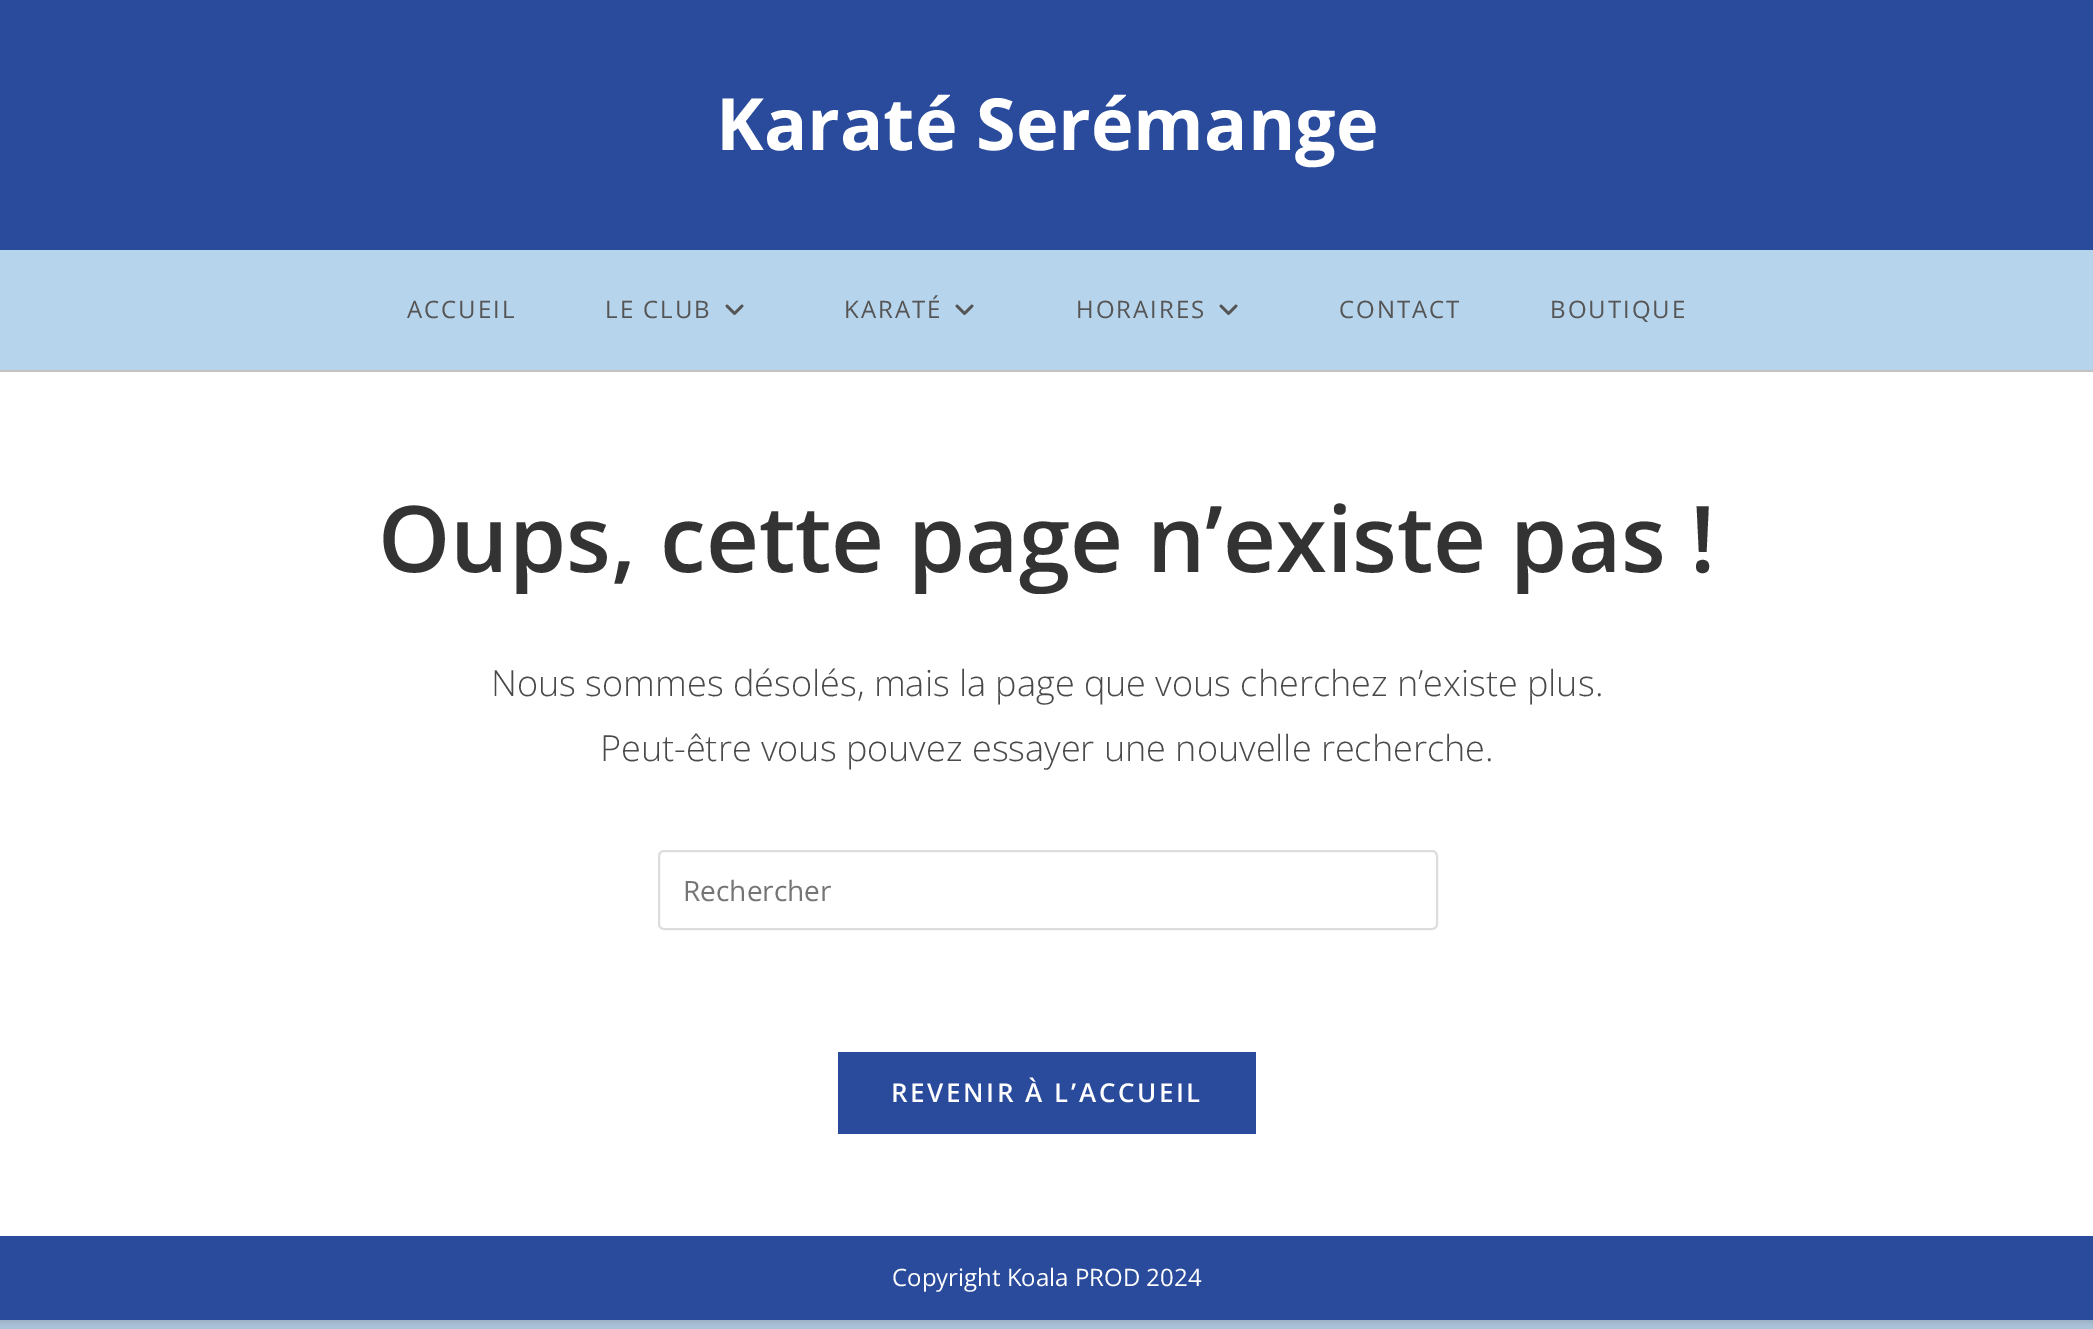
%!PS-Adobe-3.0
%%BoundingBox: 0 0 2093 1329
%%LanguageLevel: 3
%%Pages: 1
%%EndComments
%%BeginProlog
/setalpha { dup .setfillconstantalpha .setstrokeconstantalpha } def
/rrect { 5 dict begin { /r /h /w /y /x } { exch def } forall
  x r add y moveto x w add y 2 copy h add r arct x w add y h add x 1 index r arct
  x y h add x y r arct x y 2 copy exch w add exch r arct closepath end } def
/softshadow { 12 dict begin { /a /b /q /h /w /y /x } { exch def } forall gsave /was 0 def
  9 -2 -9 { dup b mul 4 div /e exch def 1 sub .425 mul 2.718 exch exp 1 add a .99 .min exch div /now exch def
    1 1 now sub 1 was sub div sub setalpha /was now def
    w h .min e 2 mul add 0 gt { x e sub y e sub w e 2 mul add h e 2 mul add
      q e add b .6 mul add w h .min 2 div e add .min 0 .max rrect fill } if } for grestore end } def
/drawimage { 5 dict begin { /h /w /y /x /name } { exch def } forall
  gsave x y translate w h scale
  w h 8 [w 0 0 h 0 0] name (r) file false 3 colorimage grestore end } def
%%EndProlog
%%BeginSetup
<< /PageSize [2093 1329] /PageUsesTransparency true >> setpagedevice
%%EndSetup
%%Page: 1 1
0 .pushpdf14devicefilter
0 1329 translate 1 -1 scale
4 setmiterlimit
0.678 0.776 0.867 setrgbcolor
0 0 2093 1329 rectfill
0 setgray
0 2 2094 1320 0 4 0.15 softshadow
1 setgray
0 372 2093 864 rectfill
0.761 setgray
0 370 2093 2 rectfill
0.165 0.294 0.608 setrgbcolor
0 0 2093 250 rectfill
0.714 0.831 0.925 setrgbcolor
0 250 2093 120 rectfill
(images/1.raw) 725 304 19 11 drawimage
(images/1.raw) 955 304 19 11 drawimage
(images/1.raw) 1219 304 19 11 drawimage
0.867 setgray
2 setlinewidth
659 851 778 78 5 rrect stroke
0.165 0.294 0.608 setrgbcolor
838 1052 418 82 rectfill
0 1236 2093 84 rectfill
/OpenSans-Bold [72 0 0 -72 0 0] selectfont
1 setgray
716 150 moveto (Karaté Serémange) show
/OpenSans-Regular [24 0 0 -24 0 0] selectfont
0.333 setgray
407 318 moveto 2 0 (ACCUEIL) ashow
605 318 moveto 2 0 (LE CLUB) ashow
844 318 moveto 2 0 (KARATÉ) ashow
1076 318 moveto 2 0 (HORAIRES) ashow
1339 318 moveto 2 0 (CONTACT) ashow
1550 318 moveto 2 0 (BOUTIQUE) ashow
/OpenSans-SemiBold [92 0 0 -92 0 0] selectfont
0.2 setgray
378 572 moveto (Oups, cette page n’existe pas !) show
/OpenSans-Light [36 0 0 -36 0 0] selectfont
0.29 setgray
491 696 moveto (Nous sommes désolés, mais la page que vous cherchez n’existe plus.) show
600 761 moveto (Peut-être vous pouvez essayer une nouvelle recherche.) show
/OpenSans-Regular [28 0 0 -28 0 0] selectfont
0.459 setgray
683 901 moveto (Rechercher) show
/OpenSans-SemiBold [26 0 0 -26 0 0] selectfont
1 setgray
891 1102 moveto 2.6 0 (REVENIR À L’ACCUEIL) ashow
/OpenSans-Regular [24 0 0 -24 0 0] selectfont
892 1286 moveto (Copyright Koala PROD 2024) show
.poppdf14devicefilter showpage
%%EOF
